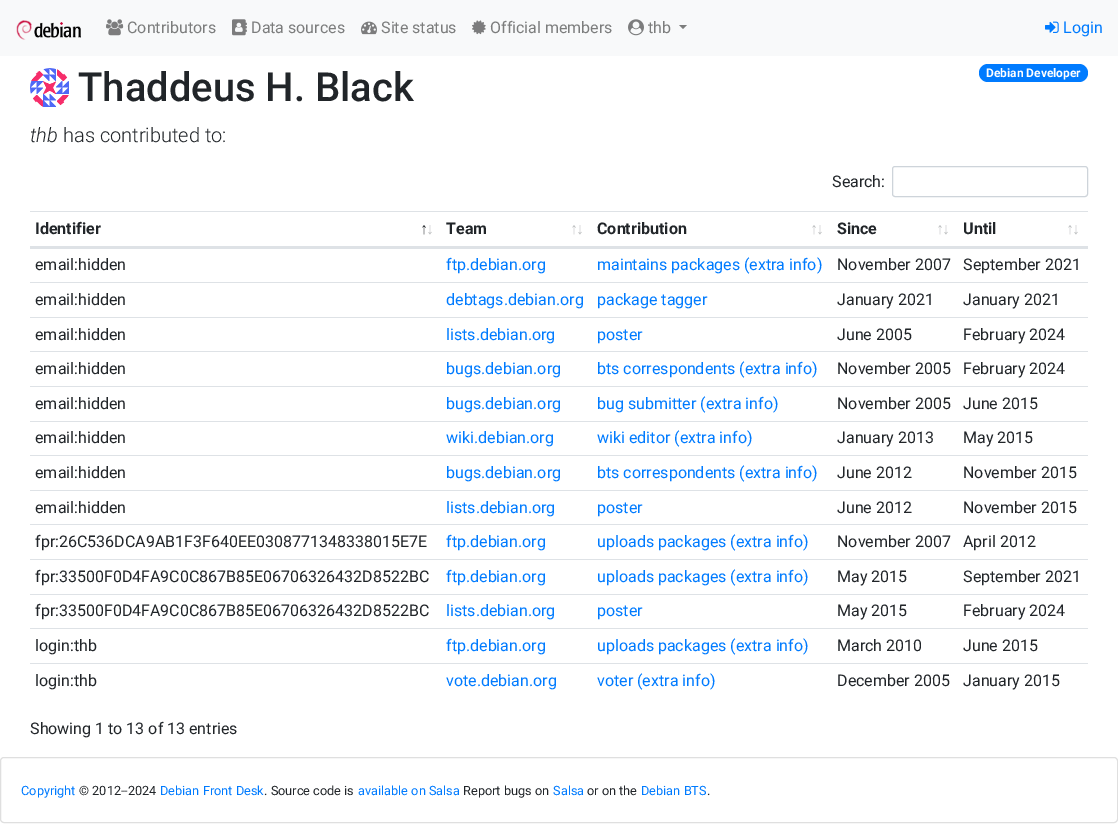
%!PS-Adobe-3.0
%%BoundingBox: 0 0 1118 840
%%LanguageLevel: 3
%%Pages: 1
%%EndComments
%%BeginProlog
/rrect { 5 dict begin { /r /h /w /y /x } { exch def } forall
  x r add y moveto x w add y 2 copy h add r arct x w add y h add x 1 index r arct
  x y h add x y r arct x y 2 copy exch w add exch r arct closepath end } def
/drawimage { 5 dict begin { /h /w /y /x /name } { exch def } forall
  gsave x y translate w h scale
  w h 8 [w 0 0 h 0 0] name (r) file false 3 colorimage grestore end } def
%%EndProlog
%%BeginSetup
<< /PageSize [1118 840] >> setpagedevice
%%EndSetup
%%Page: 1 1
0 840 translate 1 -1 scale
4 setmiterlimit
1 setgray
0 0 1118 840 rectfill
0.973 0.976 0.98 setrgbcolor
0 0 1118 56 rectfill
(images/1.raw) 16 20 65 20 drawimage
(images/2.raw) 106 19 18 17 drawimage
(images/3.raw) 232 19 15 17 drawimage
(images/4.raw) 361 21 16 14 drawimage
(images/5.raw) 472 20 14 15 drawimage
(images/6.raw) 628 19 16 17 drawimage
0.486 0.49 0.49 setrgbcolor
newpath 679 25 moveto 687 25 lineto 683 29 lineto closepath fill
(images/7.raw) 1045 21 14 12 drawimage
(images/8.raw) 30 68 39 39 drawimage
0 0.482 1 setrgbcolor
979 64 109 18 9 rrect fill
0.808 0.831 0.855 setrgbcolor
892.5 166.5 195 30 2.5 rrect stroke
0.871 0.886 0.902 setrgbcolor
30 211 1058 1 rectfill
30 246 1058 2 rectfill
30 248 1058 1 rectfill
30 282 1058 1 rectfill
30 317 1058 1 rectfill
30 351 1058 1 rectfill
30 386 1058 1 rectfill
30 421 1058 1 rectfill
30 455 1058 1 rectfill
30 490 1058 1 rectfill
30 524 1058 1 rectfill
30 559 1058 1 rectfill
30 594 1058 1 rectfill
30 628 1058 1 rectfill
30 663 1058 1 rectfill
0.875 setgray
0.5 757.5 1117 65 3.5 rrect stroke
/Roboto-Regular [16 0 0 -16 0 0] selectfont
0.486 0.49 0.49 setrgbcolor
127 33 moveto (Contributors) show
251 33 moveto (Data sources) show
381 33 moveto (Site status) show
490 33 moveto (Official members) show
648 33 moveto (thb) show
0 0.482 1 setrgbcolor
1063 33 moveto (Login) show
/Roboto-Medium [40 0 0 -40 0 0] selectfont
0.129 0.145 0.161 setrgbcolor
78 101 moveto (Thaddeus H. Black) show
/Roboto-Bold [12 0 0 -12 0 0] selectfont
1 setgray
986 77 moveto (Debian Developer) show
/Roboto-LightItalic [20 0 0 -20 0 0] selectfont
0.129 0.145 0.161 setrgbcolor
30 142 moveto (thb) show
/Roboto-Light [20 0 0 -20 0 0] selectfont
63 142 moveto (has contributed to:) show
/Roboto-Regular [16 0 0 -16 0 0] selectfont
832 187 moveto (Search:) show
/Roboto-Bold [16 0 0 -16 0 0] selectfont
35 234 moveto (Identifier) show
/LiberationSans-Bold [16 0 0 -16 0 0] selectfont
420 234 moveto (↑) show
0.737 0.745 0.749 setrgbcolor
426 234 moveto (↓) show
/Roboto-Bold [16 0 0 -16 0 0] selectfont
0.129 0.145 0.161 setrgbcolor
446 234 moveto (Team) show
/LiberationSans-Bold [16 0 0 -16 0 0] selectfont
0.737 0.745 0.749 setrgbcolor
570 234 moveto (↑) show
576 234 moveto (↓) show
/Roboto-Bold [16 0 0 -16 0 0] selectfont
0.129 0.145 0.161 setrgbcolor
597 234 moveto (Contribution) show
/LiberationSans-Bold [16 0 0 -16 0 0] selectfont
0.737 0.745 0.749 setrgbcolor
810 234 moveto (↑) show
816 234 moveto (↓) show
/Roboto-Bold [16 0 0 -16 0 0] selectfont
0.129 0.145 0.161 setrgbcolor
837 234 moveto (Since) show
/LiberationSans-Bold [16 0 0 -16 0 0] selectfont
0.737 0.745 0.749 setrgbcolor
936 234 moveto (↑) show
942 234 moveto (↓) show
/Roboto-Bold [16 0 0 -16 0 0] selectfont
0.129 0.145 0.161 setrgbcolor
963 234 moveto (Until) show
/LiberationSans-Bold [16 0 0 -16 0 0] selectfont
0.737 0.745 0.749 setrgbcolor
1066 234 moveto (↑) show
1072 234 moveto (↓) show
/Roboto-Regular [16 0 0 -16 0 0] selectfont
0.129 0.145 0.161 setrgbcolor
35 270 moveto (email:hidden) show
0 0.482 1 setrgbcolor
446 270 moveto (ftp.debian.org) show
597 270 moveto (maintains packages \(extra info\)) show
0.129 0.145 0.161 setrgbcolor
837 270 moveto (November 2007) show
963 270 moveto (September 2021) show
35 305 moveto (email:hidden) show
0 0.482 1 setrgbcolor
446 305 moveto (debtags.debian.org) show
597 305 moveto (package tagger) show
0.129 0.145 0.161 setrgbcolor
837 305 moveto (January 2021) show
963 305 moveto (January 2021) show
35 340 moveto (email:hidden) show
0 0.482 1 setrgbcolor
446 340 moveto (lists.debian.org) show
597 340 moveto (poster) show
0.129 0.145 0.161 setrgbcolor
837 340 moveto (June 2005) show
963 340 moveto (February 2024) show
35 374 moveto (email:hidden) show
0 0.482 1 setrgbcolor
446 374 moveto (bugs.debian.org) show
597 374 moveto (bts correspondents \(extra info\)) show
0.129 0.145 0.161 setrgbcolor
837 374 moveto (November 2005) show
963 374 moveto (February 2024) show
35 409 moveto (email:hidden) show
0 0.482 1 setrgbcolor
446 409 moveto (bugs.debian.org) show
597 409 moveto (bug submitter \(extra info\)) show
0.129 0.145 0.161 setrgbcolor
837 409 moveto (November 2005) show
963 409 moveto (June 2015) show
35 443 moveto (email:hidden) show
0 0.482 1 setrgbcolor
446 443 moveto (wiki.debian.org) show
597 443 moveto (wiki editor \(extra info\)) show
0.129 0.145 0.161 setrgbcolor
837 443 moveto (January 2013) show
963 443 moveto (May 2015) show
35 478 moveto (email:hidden) show
0 0.482 1 setrgbcolor
446 478 moveto (bugs.debian.org) show
597 478 moveto (bts correspondents \(extra info\)) show
0.129 0.145 0.161 setrgbcolor
837 478 moveto (June 2012) show
963 478 moveto (November 2015) show
35 513 moveto (email:hidden) show
0 0.482 1 setrgbcolor
446 513 moveto (lists.debian.org) show
597 513 moveto (poster) show
0.129 0.145 0.161 setrgbcolor
837 513 moveto (June 2012) show
963 513 moveto (November 2015) show
35 547 moveto (fpr:26C536DCA9AB1F3F640EE0308771348338015E7E) show
0 0.482 1 setrgbcolor
446 547 moveto (ftp.debian.org) show
597 547 moveto (uploads packages \(extra info\)) show
0.129 0.145 0.161 setrgbcolor
837 547 moveto (November 2007) show
963 547 moveto (April 2012) show
35 582 moveto (fpr:33500F0D4FA9C0C867B85E06706326432D8522BC) show
0 0.482 1 setrgbcolor
446 582 moveto (ftp.debian.org) show
597 582 moveto (uploads packages \(extra info\)) show
0.129 0.145 0.161 setrgbcolor
837 582 moveto (May 2015) show
963 582 moveto (September 2021) show
35 616 moveto (fpr:33500F0D4FA9C0C867B85E06706326432D8522BC) show
0 0.482 1 setrgbcolor
446 616 moveto (lists.debian.org) show
597 616 moveto (poster) show
0.129 0.145 0.161 setrgbcolor
837 616 moveto (May 2015) show
963 616 moveto (February 2024) show
35 651 moveto (login:thb) show
0 0.482 1 setrgbcolor
446 651 moveto (ftp.debian.org) show
597 651 moveto (uploads packages \(extra info\)) show
0.129 0.145 0.161 setrgbcolor
837 651 moveto (March 2010) show
963 651 moveto (June 2015) show
35 686 moveto (login:thb) show
0 0.482 1 setrgbcolor
446 686 moveto (vote.debian.org) show
597 686 moveto (voter \(extra info\)) show
0.129 0.145 0.161 setrgbcolor
837 686 moveto (December 2005) show
963 686 moveto (January 2015) show
30 734 moveto (Showing 1 to 13 of 13 entries) show
/Roboto-Regular [12.75 0 0 -12.75 0 0] selectfont
0 0.482 1 setrgbcolor
21 795 moveto (Copyright) show
0.129 0.145 0.161 setrgbcolor
79 795 moveto (© 2012--2024) show
0 0.482 1 setrgbcolor
160 795 moveto (Debian Front Desk) show
0.129 0.145 0.161 setrgbcolor
264 795 moveto (. Source code is) show
0 0.482 1 setrgbcolor
358 795 moveto (available on Salsa) show
0.129 0.145 0.161 setrgbcolor
463 795 moveto (Report bugs on) show
0 0.482 1 setrgbcolor
553 795 moveto (Salsa) show
0.129 0.145 0.161 setrgbcolor
587 795 moveto (or on the) show
0 0.482 1 setrgbcolor
641 795 moveto (Debian BTS) show
0.129 0.145 0.161 setrgbcolor
707 795 moveto (.) show
showpage
%%EOF
